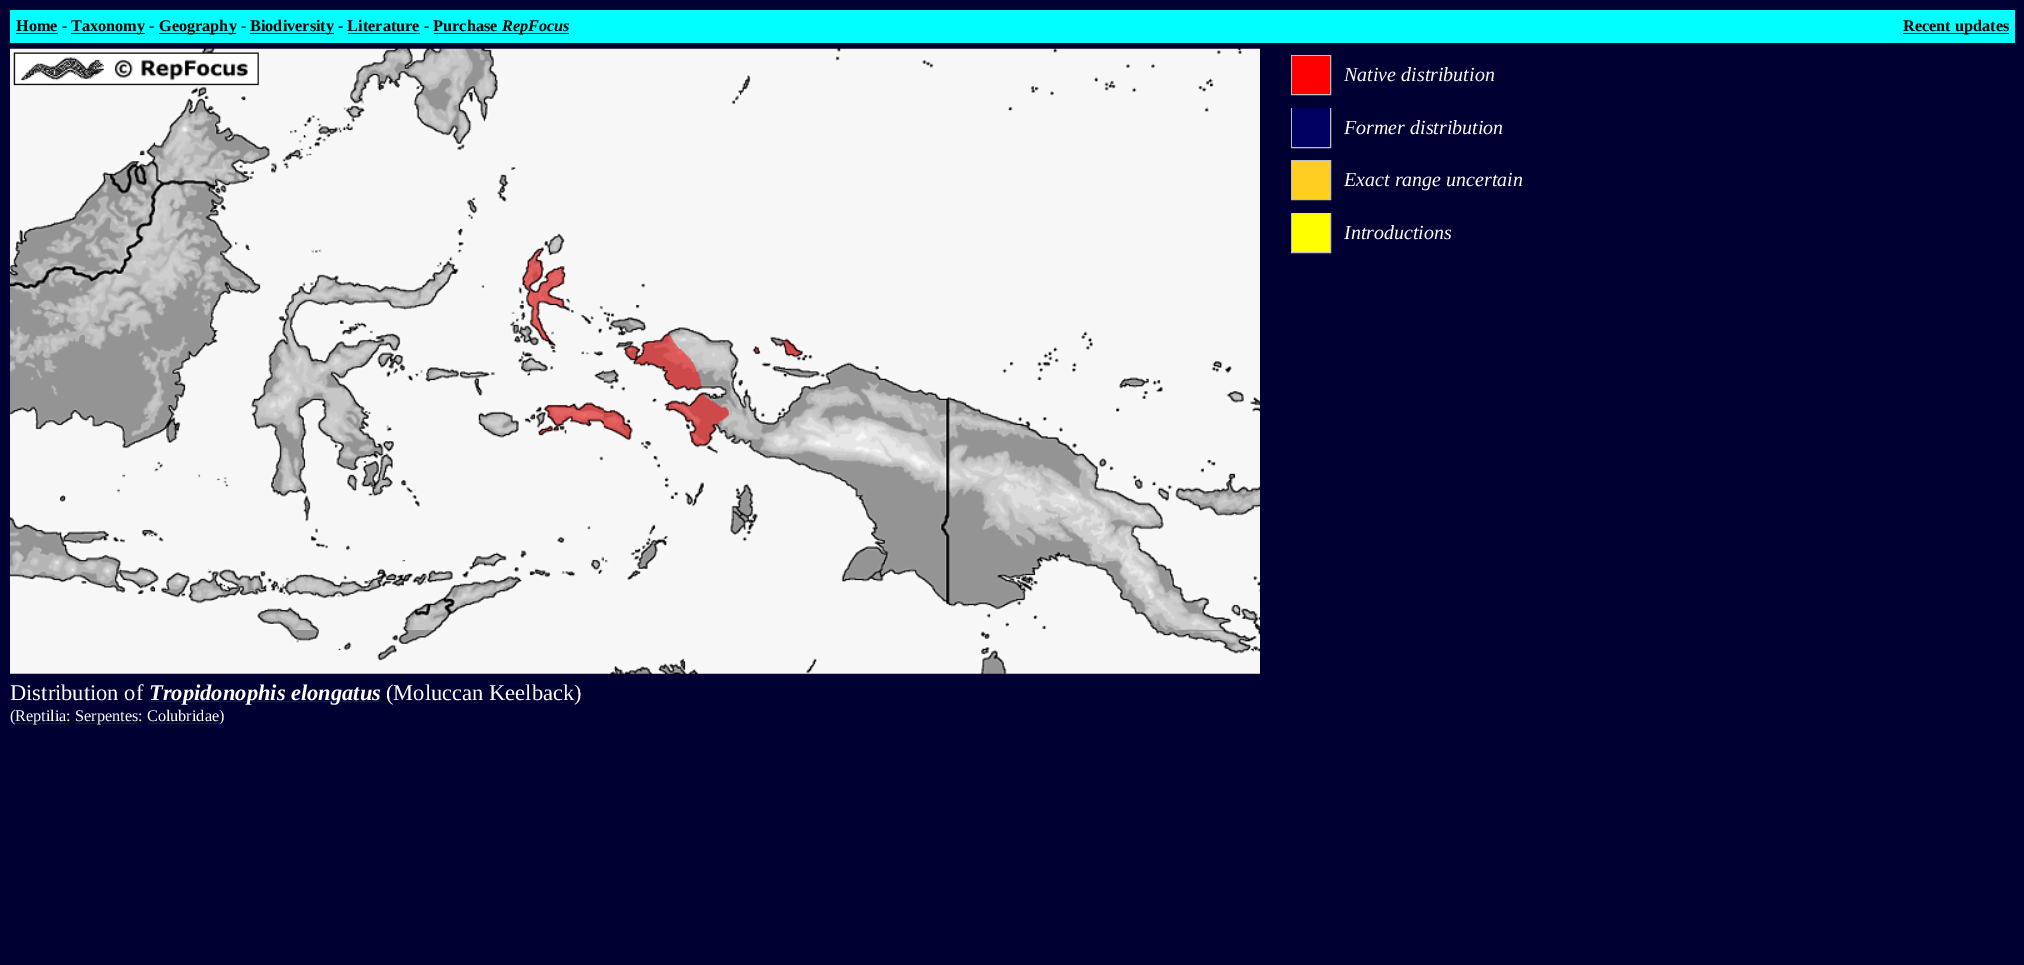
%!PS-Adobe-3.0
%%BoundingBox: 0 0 2024 965
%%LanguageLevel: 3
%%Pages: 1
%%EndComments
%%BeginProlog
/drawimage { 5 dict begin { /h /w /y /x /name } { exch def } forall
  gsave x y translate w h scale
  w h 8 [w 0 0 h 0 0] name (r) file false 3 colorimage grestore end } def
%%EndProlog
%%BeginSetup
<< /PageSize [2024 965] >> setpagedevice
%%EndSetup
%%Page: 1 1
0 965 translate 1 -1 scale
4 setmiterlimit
0 0 0.2 setrgbcolor
0 0 2024 965 rectfill
0 1 1 setrgbcolor
10 10 2005 33 rectfill
0 0 0.933 setrgbcolor
16 33 42 1 rectfill
71 33 74 1 rectfill
159 33 77 1 rectfill
250 33 84 1 rectfill
1903 33 106 1 rectfill
0.753 setgray
1291.5 55.5 39 39 rectstroke
1 0 0 setrgbcolor
1292 56 38 38 rectfill
0.753 setgray
1291.5 108.5 39 39 rectstroke
0 0 0.388 setrgbcolor
1292 108 38 39 rectfill
0.753 setgray
1291.5 160.5 39 39 rectstroke
1 0.808 0.129 setrgbcolor
1292 161 38 38 rectfill
0.753 setgray
1291.5 213.5 39 39 rectstroke
1 1 0 setrgbcolor
1292 213 38 39 rectfill
(images/1.raw) 10 48 1250 626 drawimage
0 0 0.933 setrgbcolor
149 701 232 1 rectfill
15 723 53 1 rectfill
75 723 64 1 rectfill
/LiberationSerif-Bold [16.25 0 0 -16.25 0 0] selectfont
0 setgray
16 31 moveto (Home -) show
71 31 moveto (Taxonomy -) show
159 31 moveto (Geography -) show
250 31 moveto (Biodiversity - Literature - Purchase) show
0 0 0.933 setrgbcolor
434 33 135 1 rectfill
/LiberationSerif-BoldItalic [16.25 0 0 -16.25 0 0] selectfont
0 setgray
502 31 moveto (RepFocus) show
0 0 0.933 setrgbcolor
348 33 72 1 rectfill
/LiberationSerif-Bold [16.25 0 0 -16.25 0 0] selectfont
0 setgray
1903 31 moveto (Recent updates) show
/LiberationSerif-Italic [20 0 0 -20 0 0] selectfont
1 setgray
1344 81 moveto (Native distribution) show
1344 134 moveto (Former distribution) show
1344 186 moveto (Exact range uncertain) show
1344 239 moveto (Introductions) show
/LiberationSerif-Regular [22.5 0 0 -22.5 0 0] selectfont
10 700 moveto (Distribution of) show
/LiberationSerif-BoldItalic [22.5 0 0 -22.5 0 0] selectfont
149 700 moveto (Tropidonophis elongatus) show
/LiberationSerif-Regular [22.5 0 0 -22.5 0 0] selectfont
386 700 moveto (\(Moluccan Keelback\)) show
/LiberationSerif-Regular [16.25 0 0 -16.25 0 0] selectfont
10 721 moveto (\() show
15 721 moveto (Reptilia:) show
75 721 moveto (Serpentes: Colubridae\)) show
0 0 0.933 setrgbcolor
148 723 72 1 rectfill
showpage
%%EOF
